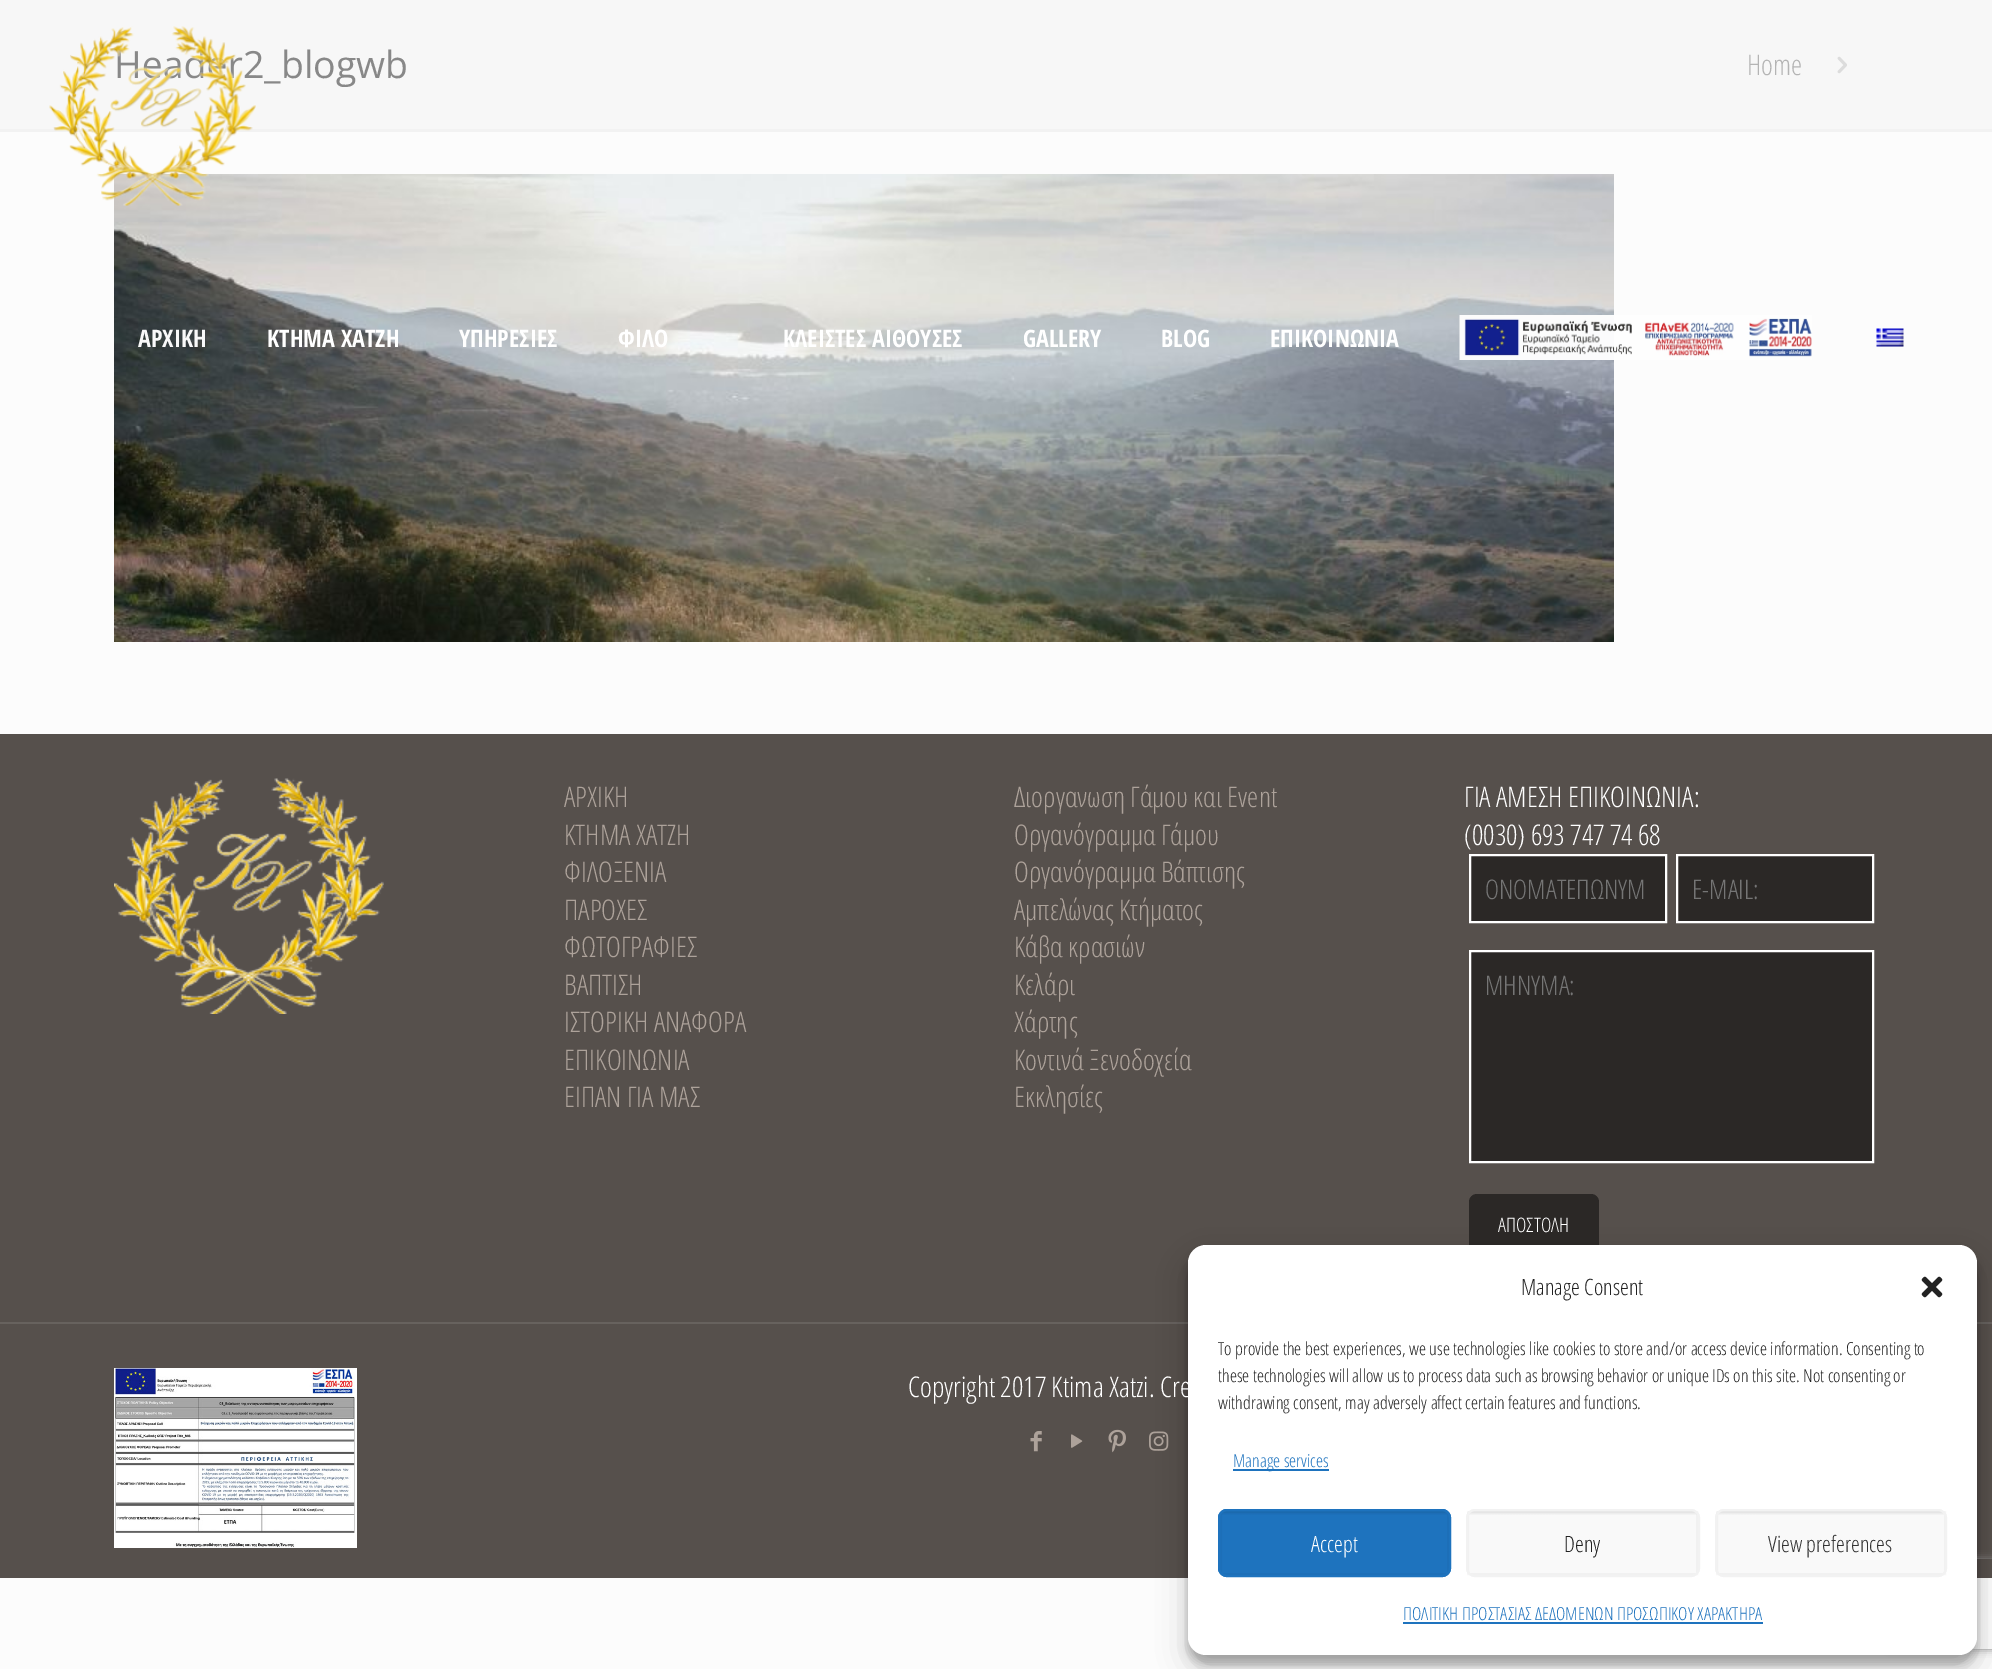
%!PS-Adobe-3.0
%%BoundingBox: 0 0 1992 1669
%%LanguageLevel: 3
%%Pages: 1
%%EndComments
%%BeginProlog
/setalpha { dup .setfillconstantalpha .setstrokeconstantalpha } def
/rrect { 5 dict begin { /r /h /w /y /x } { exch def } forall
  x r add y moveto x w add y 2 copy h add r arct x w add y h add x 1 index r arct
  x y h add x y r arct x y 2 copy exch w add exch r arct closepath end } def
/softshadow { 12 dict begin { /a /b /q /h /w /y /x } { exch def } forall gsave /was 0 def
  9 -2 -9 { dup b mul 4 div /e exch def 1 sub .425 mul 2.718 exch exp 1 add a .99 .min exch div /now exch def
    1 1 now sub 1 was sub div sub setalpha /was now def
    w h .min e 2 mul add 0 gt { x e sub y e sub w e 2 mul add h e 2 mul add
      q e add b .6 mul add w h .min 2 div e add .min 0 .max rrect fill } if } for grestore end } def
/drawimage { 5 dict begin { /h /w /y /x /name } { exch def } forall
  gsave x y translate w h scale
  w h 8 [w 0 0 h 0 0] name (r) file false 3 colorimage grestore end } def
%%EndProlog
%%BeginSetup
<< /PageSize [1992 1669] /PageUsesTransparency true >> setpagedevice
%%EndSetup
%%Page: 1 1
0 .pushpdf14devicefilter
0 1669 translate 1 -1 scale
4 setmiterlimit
0.988 setgray
0 0 1992 1669 rectfill
0.969 setgray
0 0 1992 129 rectfill
(images/1.raw) 1837 56 10 18 drawimage
0.949 setgray
0 129 1992 3 rectfill
(images/5.raw) 114 174 1500 468 drawimage
(images/3.raw) 1459 315 353 45 drawimage
(images/4.raw) 1876 328 28 19 drawimage
0.337 0.314 0.298 setrgbcolor
0 734 1992 844 rectfill
(images/6.raw) 114 778 270 236 drawimage
0.169 0.157 0.149 setrgbcolor
newpath 1470 855 moveto 1666 855 lineto 1666 922 lineto 1470 922 lineto closepath gsave fill grestore
1 setgray
2 setlinewidth
stroke
0.169 0.157 0.149 setrgbcolor
newpath 1677 855 moveto 1873 855 lineto 1873 922 lineto 1677 922 lineto closepath gsave fill grestore
1 setgray
stroke
0.169 0.157 0.149 setrgbcolor
newpath 1470 951 moveto 1873 951 lineto 1873 1162 lineto 1470 1162 lineto closepath gsave fill grestore
1 setgray
stroke
0.169 0.157 0.149 setrgbcolor
1469 1194 130 60 8 rrect fill
0.404 0.384 0.369 setrgbcolor
0 1322 1992 2 rectfill
(images/7.raw) 114 1368 243 180 drawimage
(images/8.raw) 1030 1431 12 21 drawimage
(images/9.raw) 1071 1434 12 14 drawimage
(images/10.raw) 1108 1429 18 24 drawimage
(images/11.raw) 1149 1431 20 20 drawimage
0 setgray
1188 1254 789 410 18 4.5 0.23 softshadow
1188 1260 789 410 18 15 0.19 softshadow
gsave
newpath 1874 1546 moveto 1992 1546 lineto 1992 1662 lineto 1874 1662 lineto closepath 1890 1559 moveto 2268 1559 lineto 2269.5 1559 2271 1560.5 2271 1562 curveto 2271 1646 lineto 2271 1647.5 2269.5 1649 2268 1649 curveto 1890 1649 lineto 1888.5 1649 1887 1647.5 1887 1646 curveto 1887 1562 lineto 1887 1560.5 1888.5 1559 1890 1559 curveto closepath eoclip newpath
0.502 setgray
1887 1559 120 90 3 4 1 softshadow
grestore
1 setgray
1188 1245 789 410 18 rrect fill
(images/12.raw) 1921 1276 22 22 drawimage
0.118 0.451 0.745 setrgbcolor
1233 1469 96 2 rectfill
1218 1509 233 68 9 rrect fill
(images/13.raw) 1220 1511 229 4 drawimage
0.03 setalpha
0 setgray
1221 1512 227 62 rectstroke
1 setalpha
0.118 0.451 0.745 setrgbcolor
1219 1510 231 66 8 rrect stroke
0.976 setgray
1466 1509 234 68 9 rrect fill
(images/14.raw) 1467 1510 231 5 drawimage
0.03 setalpha
0 setgray
1468 1512 229 62 rectstroke
1 setalpha
0.949 setgray
1467 1510 232 66 8 rrect stroke
0.976 setgray
1715 1509 232 68 9 rrect fill
(images/15.raw) 1716 1510 229 5 drawimage
0.03 setalpha
0 setgray
1717 1512 228 62 rectstroke
1 setalpha
0.949 setgray
1716 1510 230 66 8 rrect stroke
0.118 0.451 0.745 setrgbcolor
1403 1622 360 2 rectfill
/OpenSans-Regular [37.5 0 0 -37.5 0 0] selectfont
0.533 setgray
114 78 moveto (Header2_blogwb) show
/OpenSansCondensed-Light [28.5 0 0 -28.5 0 0] selectfont
0.706 setgray
1747 75 moveto (Home) show
(images/2.raw) 49 26 207 180 drawimage
/OpenSansCondensed-Bold [24 0 0 -24 0 0] selectfont
0.976 setgray
138 347 moveto (ΑΡΧΙΚΗ) show
1 setgray
267 347 moveto (ΚΤΗΜΑ ΧΑΤΖΗ) show
459 347 moveto (ΥΠΗΡΕΣΙΕΣ) show
618 347 moveto (ΦΙΛΟ) show
783 347 moveto (ΚΛΕΙΣΤΕΣ ΑΙΘΟΥΣΕΣ) show
1023 347 moveto (GALLERY) show
1161 347 moveto (BLOG) show
1270 347 moveto (ΕΠΙΚΟΙΝΩΝΙΑ) show
/OpenSansCondensed-Light [28.5 0 0 -28.5 0 0] selectfont
0.678 0.635 0.604 setrgbcolor
564 807 moveto (ΑΡΧΙΚΗ) show
564 845 moveto (KTHMA XATZH) show
564 882 moveto (ΦΙΛΟΞΕΝΙΑ) show
564 920 moveto (ΠΑΡΟΧΕΣ) show
564 957 moveto (ΦΩΤΟΓΡΑΦΙΕΣ) show
564 995 moveto (ΒΑΠΤΙΣΗ) show
564 1032 moveto (ΙΣΤΟΡΙΚΗ ΑΝΑΦΟΡΑ) show
564 1070 moveto (EΠΙΚΟΙΝΩΝΙΑ) show
564 1107 moveto (ΕΙΠΑΝ ΓΙΑ ΜΑΣ) show
1014 807 moveto (Διοργανωση Γάμου και Event) show
1014 845 moveto (Οργανόγραμμα Γάμου) show
1014 882 moveto (Οργανόγραμμα Βάπτισης) show
1014 920 moveto (Αμπελώνας Κτήματος) show
1014 957 moveto (Κάβα κρασιών) show
1014 995 moveto (Κελάρι) show
1014 1032 moveto (Χάρτης) show
1014 1070 moveto (Κοντινά Ξενοδοχεία) show
1014 1107 moveto (Εκκλησίες) show
1 setgray
1464 807 moveto (ΓΙΑ ΑΜΕΣΗ ΕΠΙΚΟΙΝΩΝΙΑ:) show
1464 845 moveto (\(0030\) 693 747 74 68) show
/OpenSansCondensed-Light [27 0 0 -27 0 0] selectfont
0.459 setgray
1485 899 moveto (ΟΝΟΜΑΤΕΠΩΝΥΜ) show
1692 899 moveto (E-MAIL:) show
1485 995 moveto (ΜΗΝΥΜΑ:) show
/OpenSansCondensed-Light [20 0 0 -20 0 0] selectfont
1 setgray
1498 1232 moveto (ΑΠΟΣΤΟΛΗ) show
/OpenSansCondensed-Light [28.5 0 0 -28.5 0 0] selectfont
908 1397 moveto (Copyright 2017 Ktima Xatzi. Cre) show
/OpenSansCondensed-Light [22.5 0 0 -22.5 0 0] selectfont
0.133 setgray
1521 1295 moveto (Manage Consent) show
/OpenSansCondensed-Light [18 0 0 -18 0 0] selectfont
1218 1355 moveto (To provide the best experiences, we use technologies like cookies to store and/or access device information. Consenting to) show
1218 1382 moveto (these technologies will allow us to process data such as browsing behavior or unique IDs on this site. Not consenting or) show
1218 1409 moveto (withdrawing consent, may adversely affect certain features and functions.) show
0.118 0.451 0.745 setrgbcolor
1233 1467 moveto (Manage services) show
/OpenSansCondensed-Light [22.5 0 0 -22.5 0 0] selectfont
1 setgray
1311 1552 moveto (Accept) show
0.133 setgray
1564 1552 moveto (Deny) show
0.2 setgray
1768 1552 moveto (View preferences) show
/OpenSansCondensed-Light [18 0 0 -18 0 0] selectfont
0.118 0.451 0.745 setrgbcolor
1403 1620 moveto (ΠΟΛΙΤΙΚΗ ΠΡΟΣΤΑΣΙΑΣ ΔΕΔΟΜΕΝΩΝ ΠΡΟΣΩΠΙΚΟΥ ΧΑΡΑΚΤΗΡΑ) show
.poppdf14devicefilter showpage
%%EOF
